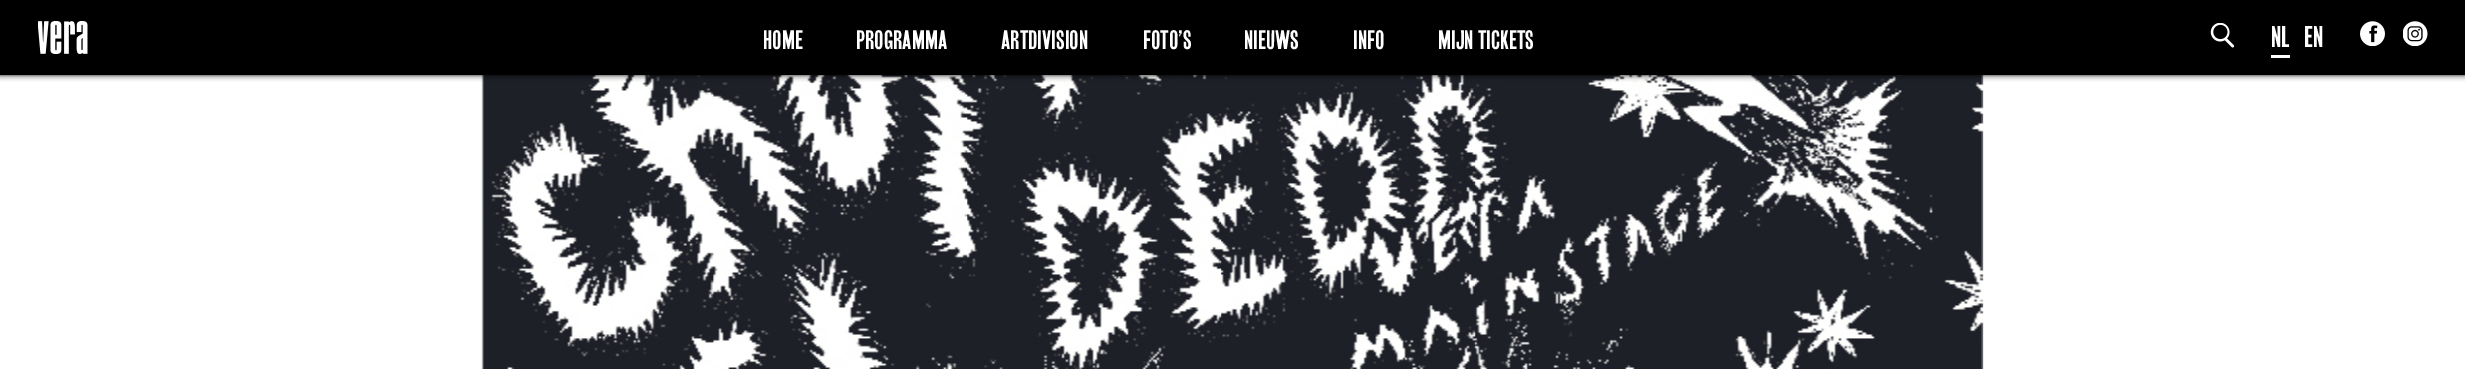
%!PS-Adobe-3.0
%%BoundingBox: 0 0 2465 369
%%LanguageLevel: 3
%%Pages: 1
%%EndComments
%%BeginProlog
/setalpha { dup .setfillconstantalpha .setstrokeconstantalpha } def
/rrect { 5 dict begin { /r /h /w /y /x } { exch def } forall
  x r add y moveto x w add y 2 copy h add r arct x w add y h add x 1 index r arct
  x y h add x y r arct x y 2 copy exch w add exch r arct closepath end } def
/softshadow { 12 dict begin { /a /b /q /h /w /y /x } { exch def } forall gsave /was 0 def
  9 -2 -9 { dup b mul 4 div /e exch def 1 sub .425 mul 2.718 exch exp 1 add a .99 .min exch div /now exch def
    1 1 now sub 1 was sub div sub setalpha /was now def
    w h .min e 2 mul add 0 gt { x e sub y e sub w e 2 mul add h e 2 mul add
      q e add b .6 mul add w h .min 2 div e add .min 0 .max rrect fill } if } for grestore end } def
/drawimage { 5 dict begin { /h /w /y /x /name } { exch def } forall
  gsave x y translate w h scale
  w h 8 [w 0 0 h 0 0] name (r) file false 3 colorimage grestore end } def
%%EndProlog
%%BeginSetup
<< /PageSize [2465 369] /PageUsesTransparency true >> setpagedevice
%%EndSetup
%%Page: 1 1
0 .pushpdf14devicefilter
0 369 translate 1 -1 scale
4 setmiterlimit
1 setgray
0 0 2465 369 rectfill
(images/5.raw) 481 75 1503 294 drawimage
0 setgray
0 0 2465 75 0 3 1 softshadow
0 0 2465 75 rectfill
(images/1.raw) 38 21 50 33 drawimage
(images/2.raw) 2210 23 25 25 drawimage
1 setgray
2271 55 19 3 rectfill
(images/3.raw) 2360 21 25 25 drawimage
(images/4.raw) 2403 21 25 25 drawimage
/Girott-Regular [25 0 0 -25 0 0] selectfont
763 49 moveto (HOME) show
856 49 moveto (PROGRAMMA) show
1001 49 moveto (ARTDIVISION) show
1143 49 moveto (FOTO’S) show
1244 49 moveto (NIEUWS) show
1353 49 moveto (INFO) show
1438 49 moveto (MIJN TICKETS) show
/Girott-Regular [28 0 0 -28 0 0] selectfont
2271 47 moveto (NL) show
2304 47 moveto (EN) show
.poppdf14devicefilter showpage
%%EOF
